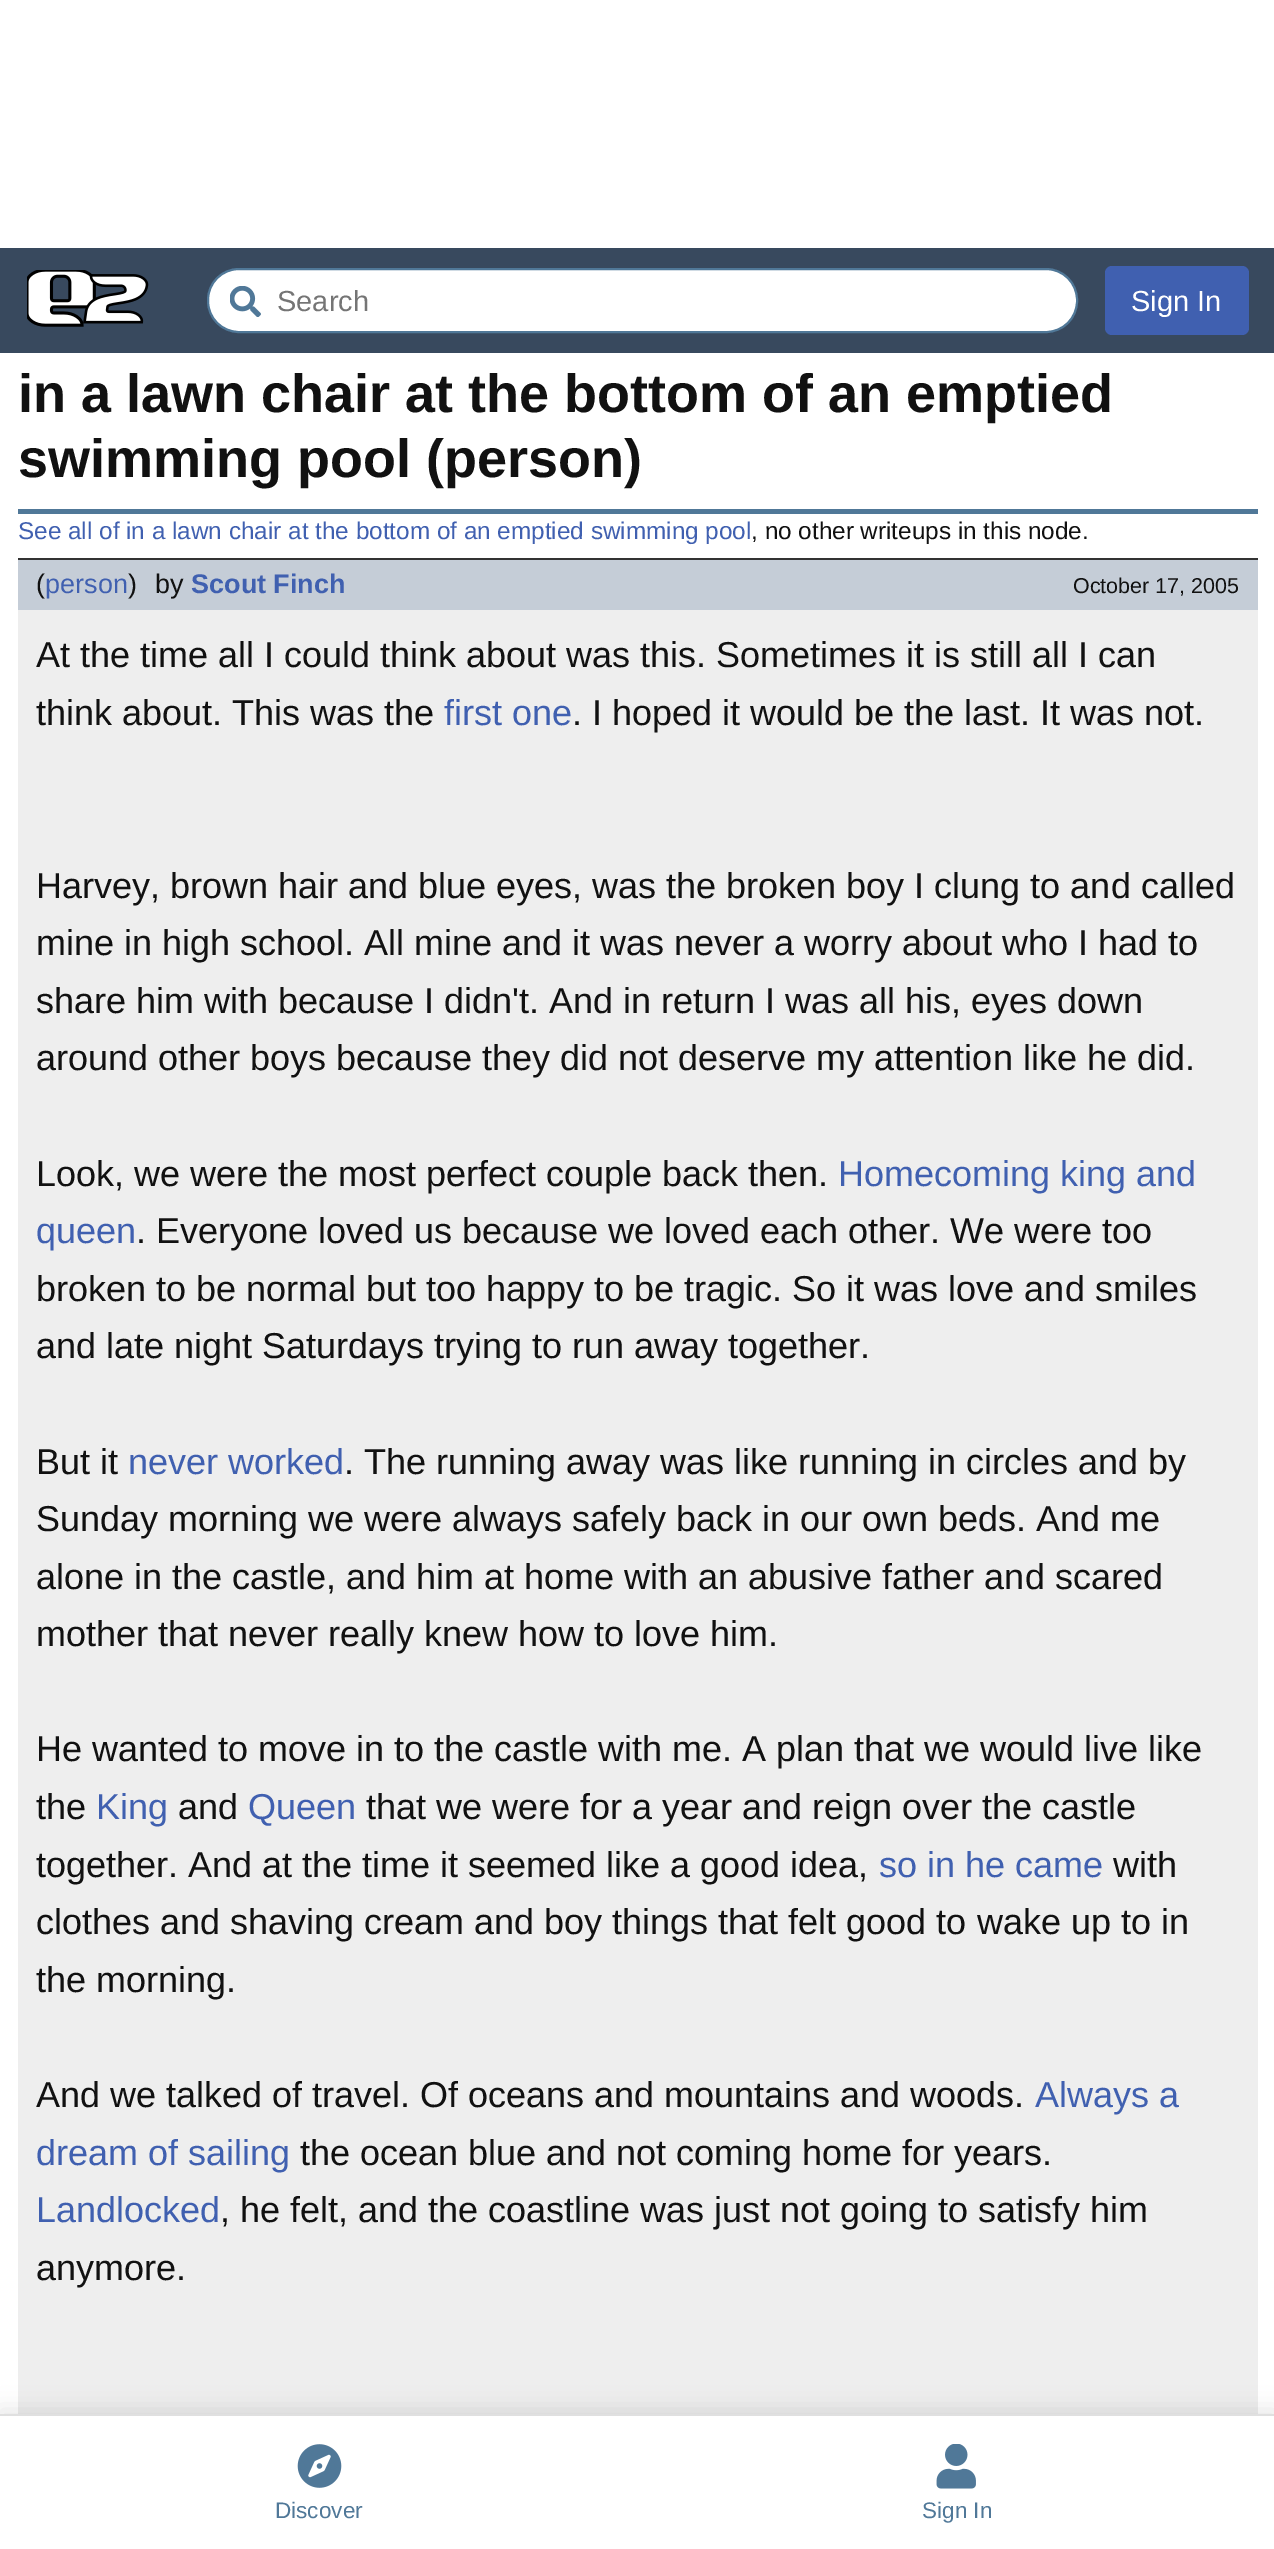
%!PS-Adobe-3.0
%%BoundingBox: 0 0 1274 2549
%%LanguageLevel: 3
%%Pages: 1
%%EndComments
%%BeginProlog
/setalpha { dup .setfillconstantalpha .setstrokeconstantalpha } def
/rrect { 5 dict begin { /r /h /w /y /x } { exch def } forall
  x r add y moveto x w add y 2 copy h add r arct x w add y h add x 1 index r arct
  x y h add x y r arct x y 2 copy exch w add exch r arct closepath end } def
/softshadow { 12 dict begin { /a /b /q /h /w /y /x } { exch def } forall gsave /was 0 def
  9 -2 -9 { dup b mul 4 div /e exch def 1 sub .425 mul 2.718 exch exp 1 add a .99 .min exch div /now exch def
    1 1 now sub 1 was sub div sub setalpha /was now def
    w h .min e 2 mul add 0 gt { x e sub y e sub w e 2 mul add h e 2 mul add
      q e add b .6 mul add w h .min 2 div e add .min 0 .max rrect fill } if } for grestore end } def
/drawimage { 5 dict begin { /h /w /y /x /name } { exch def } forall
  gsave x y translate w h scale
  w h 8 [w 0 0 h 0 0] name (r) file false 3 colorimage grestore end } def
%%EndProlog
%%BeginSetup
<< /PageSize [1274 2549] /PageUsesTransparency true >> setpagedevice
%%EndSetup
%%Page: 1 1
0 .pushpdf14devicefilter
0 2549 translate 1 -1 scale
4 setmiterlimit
1 setgray
0 0 1274 2549 rectfill
0.22 0.286 0.369 setrgbcolor
0 248 1274 105 rectfill
(images/1.raw) 27 270 122 57 drawimage
1 setgray
208 269 869 63 31 rrect gsave fill grestore
0.314 0.471 0.596 setrgbcolor
2 setlinewidth
stroke
(images/2.raw) 230 286 31 31 drawimage
0.251 0.376 0.69 setrgbcolor
1105 266 144 69 7 rrect fill
0.314 0.471 0.596 setrgbcolor
18 509 1240 5 rectfill
0.773 0.804 0.843 setrgbcolor
18 560 1240 50 rectfill
0.2 setgray
18 558 1240 2 rectfill
0.933 setgray
18 610 1240 1804 rectfill
0 setgray
0 2410 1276 135 0 11 0.1 softshadow
1 setgray
0 2416 1274 133 rectfill
0.878 setgray
0 2414 1274 2 rectfill
(images/3.raw) 297 2444 45 44 drawimage
(images/4.raw) 936 2444 40 45 drawimage
/LiberationSans-Regular [29 0 0 -29 0 0] selectfont
0.459 setgray
277 311 moveto (Search) show
1 setgray
1131 311 moveto (Sign In) show
/LiberationSans-Bold [54 0 0 -54 0 0] selectfont
0.067 setgray
18 412 moveto (in a lawn chair at the bottom of an emptied) show
18 477 moveto (swimming pool \(person\)) show
/LiberationSans-Regular [24.3 0 0 -24.3 0 0] selectfont
0.251 0.376 0.69 setrgbcolor
18 539 moveto (See all of in a lawn chair at the bottom of an emptied swimming pool) show
0.067 setgray
751 539 moveto (, no other writeups in this node.) show
/LiberationSans-Regular [27 0 0 -27 0 0] selectfont
36 593 moveto (\() show
0.251 0.376 0.69 setrgbcolor
45 593 moveto (person) show
0.067 setgray
128 593 moveto (\)) show
155 593 moveto (by) show
/LiberationSans-Bold [27 0 0 -27 0 0] selectfont
0.251 0.376 0.69 setrgbcolor
191 593 moveto (Scout Finch) show
/LiberationSans-Regular [21.5 0 0 -21.5 0 0] selectfont
0.067 setgray
1073 593 moveto (October 17, 2005) show
/LiberationSans-Regular [36 0 0 -36 0 0] selectfont
36 667 moveto (At the time all I could think about was this. Sometimes it is still all I can) show
36 725 moveto (think about. This was the) show
0.251 0.376 0.69 setrgbcolor
444 725 moveto (first one) show
0.067 setgray
572 725 moveto (. I hoped it would be the last. It was not.) show
36 898 moveto (Harvey, brown hair and blue eyes, was the broken boy I clung to and called) show
36 955 moveto (mine in high school. All mine and it was never a worry about who I had to) show
36 1013 moveto (share him with because I didn't. And in return I was all his, eyes down) show
36 1070 moveto (around other boys because they did not deserve my attention like he did.) show
36 1186 moveto (Look, we were the most perfect couple back then.) show
0.251 0.376 0.69 setrgbcolor
838 1186 moveto (Homecoming king and) show
36 1243 moveto (queen) show
0.067 setgray
136 1243 moveto (. Everyone loved us because we loved each other. We were too) show
36 1301 moveto (broken to be normal but too happy to be tragic. So it was love and smiles) show
36 1358 moveto (and late night Saturdays trying to run away together.) show
36 1474 moveto (But it) show
0.251 0.376 0.69 setrgbcolor
128 1474 moveto (never worked) show
0.067 setgray
344 1474 moveto (. The running away was like running in circles and by) show
36 1531 moveto (Sunday morning we were always safely back in our own beds. And me) show
36 1589 moveto (alone in the castle, and him at home with an abusive father and scared) show
36 1646 moveto (mother that never really knew how to love him.) show
36 1761 moveto (He wanted to move in to the castle with me. A plan that we would live like) show
36 1819 moveto (the) show
0.251 0.376 0.69 setrgbcolor
96 1819 moveto (King) show
0.067 setgray
178 1819 moveto (and) show
0.251 0.376 0.69 setrgbcolor
248 1819 moveto (Queen) show
0.067 setgray
366 1819 moveto (that we were for a year and reign over the castle) show
36 1877 moveto (together. And at the time it seemed like a good idea,) show
0.251 0.376 0.69 setrgbcolor
879 1877 moveto (so in he came) show
0.067 setgray
1113 1877 moveto (with) show
36 1934 moveto (clothes and shaving cream and boy things that felt good to wake up to in) show
36 1992 moveto (the morning.) show
36 2107 moveto (And we talked of travel. Of oceans and mountains and woods.) show
0.251 0.376 0.69 setrgbcolor
1035 2107 moveto (Always a) show
36 2165 moveto (dream of sailing) show
0.067 setgray
300 2165 moveto (the ocean blue and not coming home for years.) show
0.251 0.376 0.69 setrgbcolor
36 2222 moveto (Landlocked) show
0.067 setgray
220 2222 moveto (, he felt, and the coastline was just not going to satisfy him) show
36 2280 moveto (anymore.) show
/LiberationSans-Regular [22.5 0 0 -22.5 0 0] selectfont
0.314 0.471 0.596 setrgbcolor
275 2518 moveto (Discover) show
922 2518 moveto (Sign In) show
.poppdf14devicefilter showpage
%%EOF
